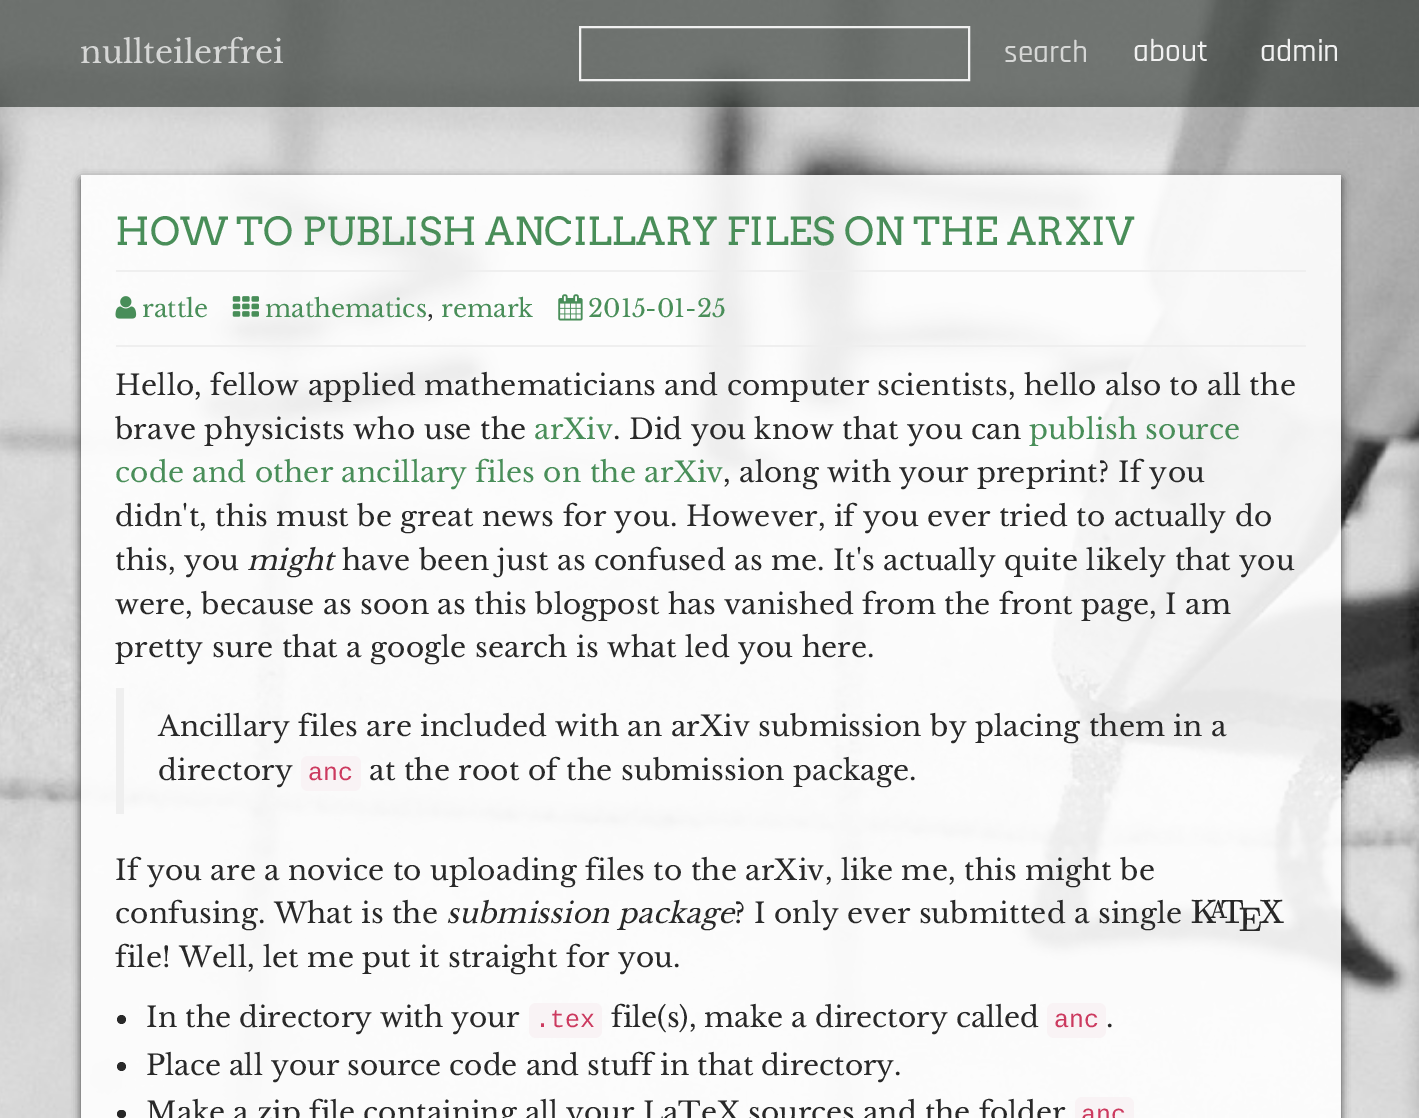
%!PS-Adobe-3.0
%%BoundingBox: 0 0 1419 1118
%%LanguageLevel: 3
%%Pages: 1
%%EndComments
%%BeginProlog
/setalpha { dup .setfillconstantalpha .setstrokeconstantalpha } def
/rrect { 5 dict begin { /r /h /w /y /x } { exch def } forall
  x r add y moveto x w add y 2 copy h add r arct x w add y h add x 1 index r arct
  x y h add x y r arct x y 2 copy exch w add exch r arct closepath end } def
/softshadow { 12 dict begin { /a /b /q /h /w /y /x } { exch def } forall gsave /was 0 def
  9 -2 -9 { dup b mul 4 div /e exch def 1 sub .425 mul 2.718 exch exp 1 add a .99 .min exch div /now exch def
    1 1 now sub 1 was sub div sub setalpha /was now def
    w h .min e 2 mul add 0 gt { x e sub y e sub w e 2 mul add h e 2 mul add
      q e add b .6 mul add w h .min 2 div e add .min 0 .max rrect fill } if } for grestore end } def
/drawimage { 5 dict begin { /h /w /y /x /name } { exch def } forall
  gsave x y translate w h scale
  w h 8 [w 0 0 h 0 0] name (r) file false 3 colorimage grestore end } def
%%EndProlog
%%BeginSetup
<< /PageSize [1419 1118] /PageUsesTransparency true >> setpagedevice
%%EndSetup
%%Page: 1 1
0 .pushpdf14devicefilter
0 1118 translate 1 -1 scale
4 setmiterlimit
1 setgray
0 0 1419 1118 rectfill
(images/1.raw) 0 0 1419 1118 drawimage
0.5 setalpha
0.004 0.035 0.012 setrgbcolor
0 0 1419 107 rectfill
0.9 setalpha
1 setgray
2 setlinewidth
580 27 389 53 rectstroke
gsave
newpath 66 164 moveto 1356 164 lineto 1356 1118 lineto 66 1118 lineto closepath 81 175 moveto 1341 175 lineto 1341 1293 lineto 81 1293 lineto closepath eoclip newpath
1 setalpha
0.2 setgray
81 179 1260 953 0 4.5 0.9 softshadow
grestore
81 175 1260 943 rectfill
0.933 setgray
116 270 1190 2 rectfill
1 setalpha
(images/2.raw) 115 296 22 23 drawimage
(images/3.raw) 232 296 27 21 drawimage
(images/4.raw) 558 294 25 27 drawimage
0.9 setalpha
116 345 1190 2 rectfill
116 688 8 126 rectfill
1 setalpha
0.976 0.953 0.961 setrgbcolor
301 756 60 35 7 rrect fill
0.161 setgray
newpath 121.5 1019.5 4.5 0 360 arc closepath fill
0.976 0.953 0.961 setrgbcolor
529 1003 73 35 7 rrect fill
1047 1003 59 35 7 rrect fill
0.161 setgray
newpath 121.5 1066.5 4.5 0 360 arc closepath fill
0.149 setgray
117 1110 9 8 4 rrect fill
0.976 0.953 0.961 setrgbcolor
1075 1097 59 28 7 rrect fill
/LibreBaskerville-Regular [31.5 0 0 -31.5 0 0] selectfont
0.839 0.843 0.839 setrgbcolor
80 63 moveto (nullteilerfrei) show
/Rajdhani-Medium [31.5 0 0 -31.5 0 0] selectfont
1004 62 moveto (search) show
0.945 setgray
1133 61 moveto (about) show
1260 61 moveto (admin) show
/Arvo-Regular [38.5 0 0 -38.5 0 0] selectfont
0.286 0.557 0.349 setrgbcolor
115 245 moveto (HOW TO PUBLISH ANCILLARY FILES ON THE ARXIV) show
/LibreBaskerville-Regular [24.5 0 0 -24.5 0 0] selectfont
142 317 moveto (rattle) show
265 317 moveto (mathematics) show
0.161 setgray
427 317 moveto (,) show
0.286 0.557 0.349 setrgbcolor
441 317 moveto (remark) show
588 317 moveto (2015-01-25) show
/LibreBaskerville-Regular [28 0 0 -28 0 0] selectfont
0.161 setgray
115 395 moveto 0.18 0 (Hello, fellow applied mathematicians and computer scientists, hello also to all the) ashow
115 439 moveto 0.18 0 (brave physicists who use the) ashow
0.286 0.557 0.349 setrgbcolor
534 439 moveto 0.18 0 (arXiv) ashow
0.161 setgray
613 439 moveto 0.18 0 (. Did you know that you can) ashow
0.286 0.557 0.349 setrgbcolor
1029 439 moveto 0.18 0 (publish source) ashow
115 482 moveto 0.18 0 (code and other ancillary files on the arXiv) ashow
0.161 setgray
723 482 moveto 0.18 0 (, along with your preprint? If you) ashow
115 526 moveto 0.18 0 (didn't, this must be great news for you. However, if you ever tried to actually do) ashow
115 570 moveto 0.18 0 (this, you) ashow
/LibreBaskerville-Italic [28 0 0 -28 0 0] selectfont
247 570 moveto 0.18 0 (might) ashow
/LibreBaskerville-Regular [28 0 0 -28 0 0] selectfont
342 570 moveto 0.18 0 (have been just as confused as me. It's actually quite likely that you) ashow
115 614 moveto 0.18 0 (were, because as soon as this blogpost has vanished from the front page, I am) ashow
115 657 moveto 0.18 0 (pretty sure that a google search is what led you here.) ashow
158 736 moveto 0.18 0 (Ancillary files are included with an arXiv submission by placing them in a) ashow
158 780 moveto 0.18 0 (directory) ashow
/LiberationMono-Regular [25 0 0 -25 0 0] selectfont
0.8 0.227 0.373 setrgbcolor
308 780 moveto 0.18 0 (anc) ashow
/LibreBaskerville-Regular [28 0 0 -28 0 0] selectfont
0.161 setgray
369 780 moveto 0.18 0 (at the root of the submission package.) ashow
115 880 moveto 0.18 0 (If you are a novice to uploading files to the arXiv, like me, this might be) ashow
115 923 moveto 0.18 0 (confusing. What is the) ashow
/LibreBaskerville-Italic [28 0 0 -28 0 0] selectfont
446 923 moveto 0.18 0 (submission package) ashow
/LibreBaskerville-Regular [28 0 0 -28 0 0] selectfont
734 923 moveto 0.18 0 (? I only ever submitted a single) ashow
/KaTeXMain-Regular [34 0 0 -34 0 0] selectfont
1191 923 moveto 0.18 0 (K) ashow
1220 923 moveto 0.18 0 (T) ashow
/KaTeXMain-Regular [25 0 0 -25 0 0] selectfont
1209 918 moveto 0.18 0 (A) ashow
/KaTeXMain-Regular [34 0 0 -34 0 0] selectfont
1259 923 moveto 0.18 0 (X) ashow
1239 931 moveto 0.18 0 (E) ashow
/LibreBaskerville-Regular [28 0 0 -28 0 0] selectfont
115 967 moveto 0.18 0 (file! Well, let me put it straight for you.) ashow
146 1027 moveto (In the directory with your) show
/LiberationMono-Regular [25 0 0 -25 0 0] selectfont
0.8 0.227 0.373 setrgbcolor
535 1027 moveto (.tex) show
/LibreBaskerville-Regular [28 0 0 -28 0 0] selectfont
0.161 setgray
611 1027 moveto (file\(s\), make a directory called) show
/LiberationMono-Regular [25 0 0 -25 0 0] selectfont
0.8 0.227 0.373 setrgbcolor
1054 1027 moveto (anc) show
/LibreBaskerville-Regular [28 0 0 -28 0 0] selectfont
0.161 setgray
1106 1027 moveto (.) show
146 1075 moveto (Place all your source code and stuff in that directory.) show
146 1122 moveto (Make a zip file containing all your LaTeX sources and the folder) show
/LiberationMono-Regular [25 0 0 -25 0 0] selectfont
0.8 0.227 0.373 setrgbcolor
1081 1122 moveto (anc) show
.poppdf14devicefilter showpage
%%EOF
